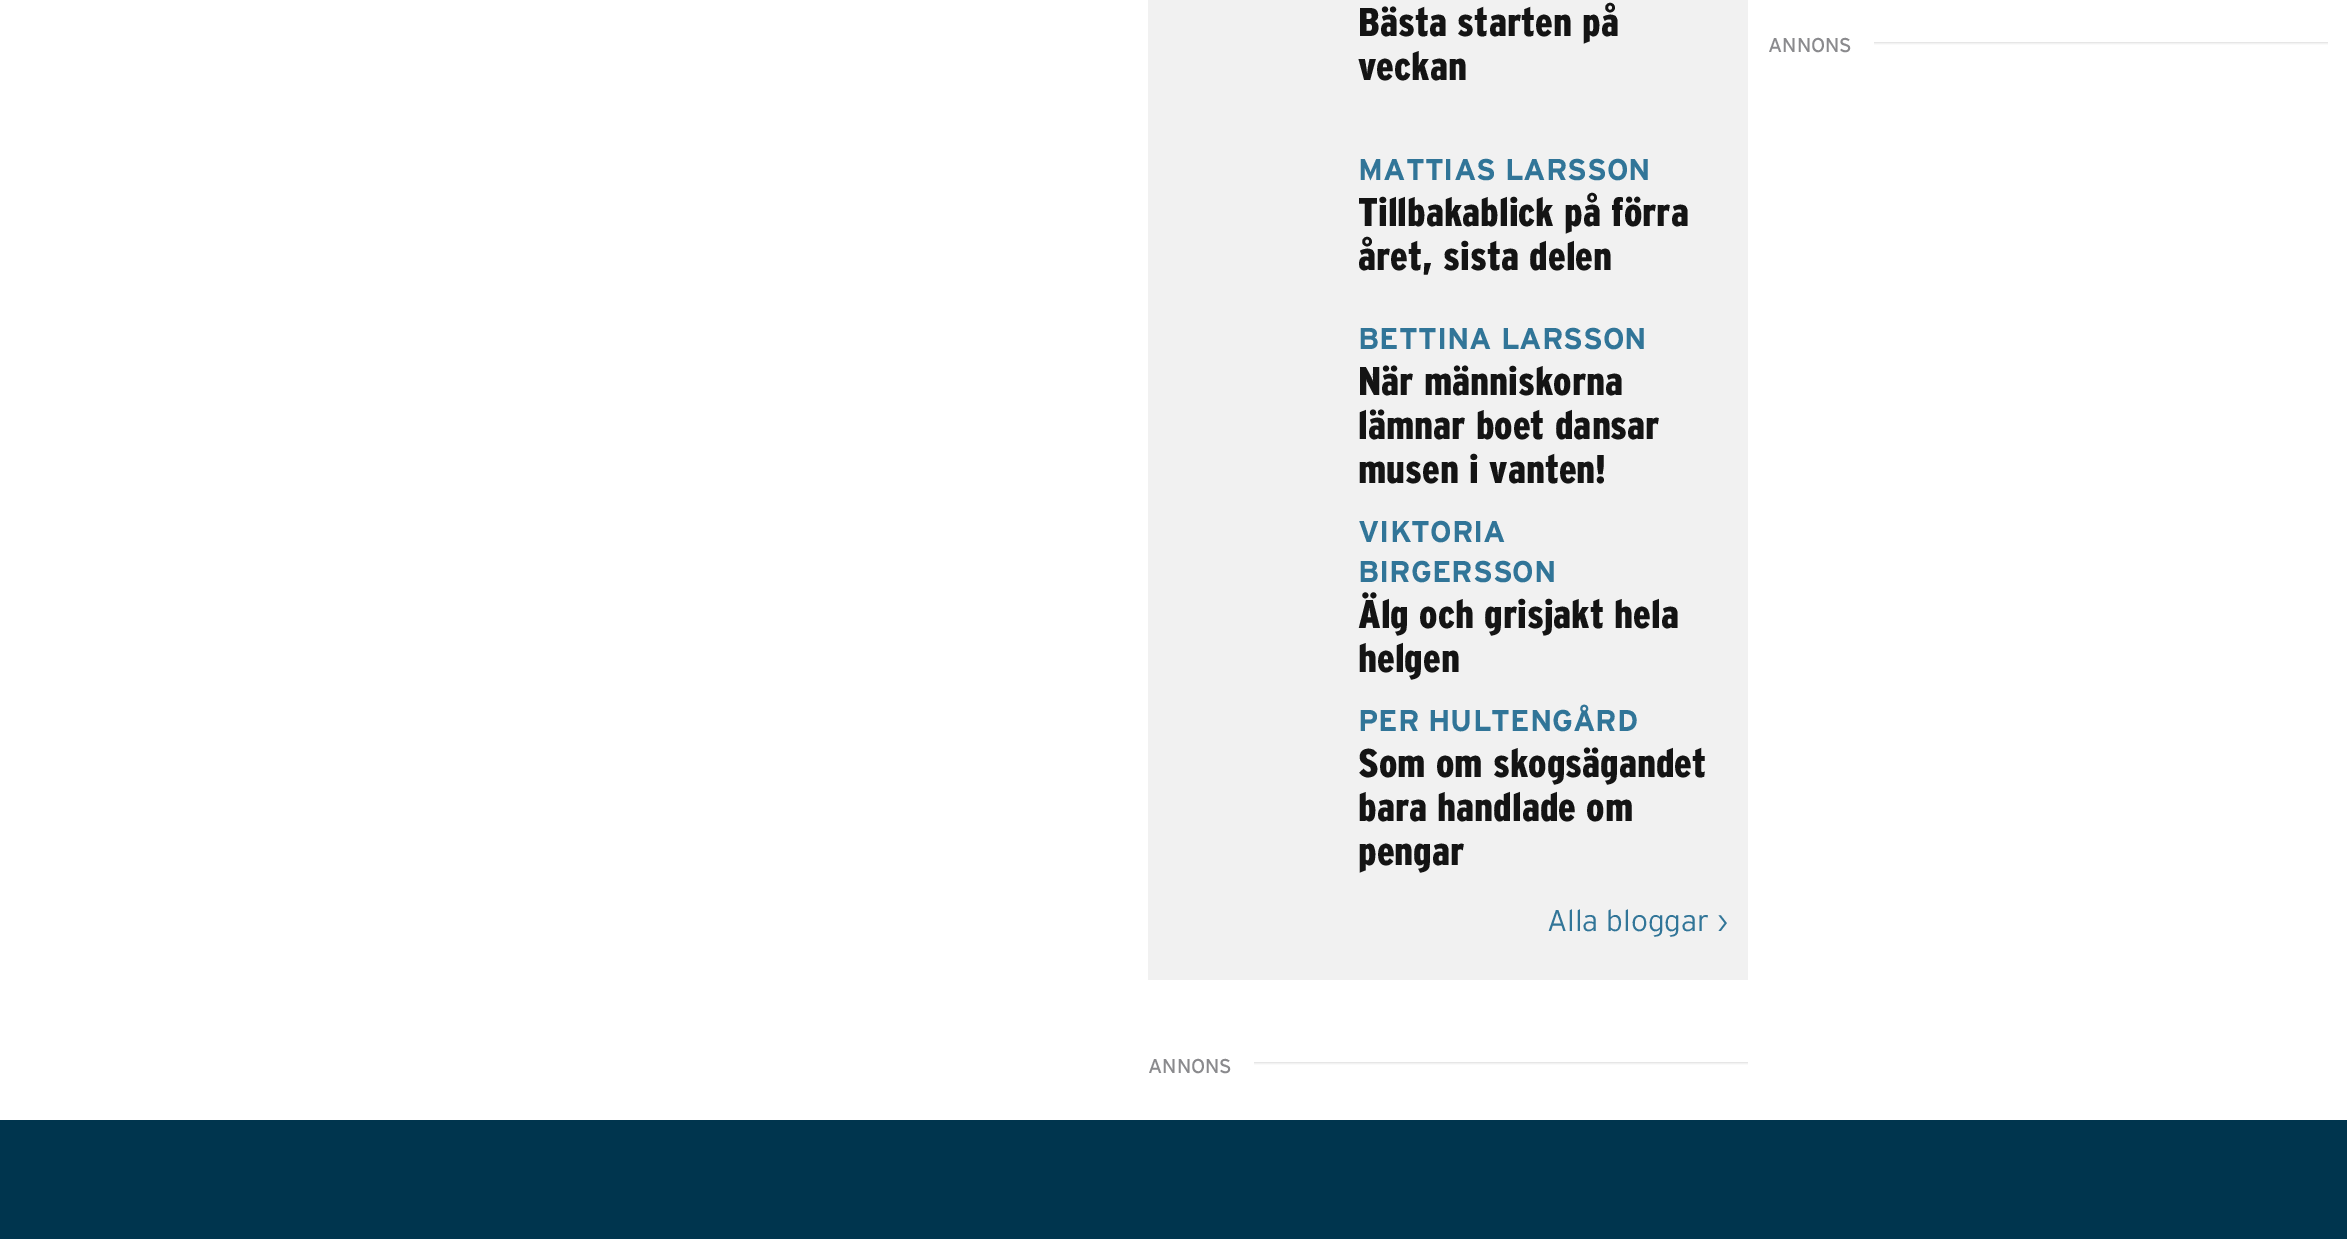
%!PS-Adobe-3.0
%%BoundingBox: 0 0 2347 1239
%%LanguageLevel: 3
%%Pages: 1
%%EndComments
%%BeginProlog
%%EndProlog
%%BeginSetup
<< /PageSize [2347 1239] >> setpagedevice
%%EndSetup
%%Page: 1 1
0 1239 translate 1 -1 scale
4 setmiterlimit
1 setgray
0 0 2347 1239 rectfill
0.945 setgray
1148 0 600 980 rectfill
gsave newpath 1254 1062 moveto 1748 1062 lineto 1748 1065 lineto 1254 1065 lineto closepath clip newpath
<< /ShadingType 2 /ColorSpace /DeviceRGB /Coords [1554 1080 1554 1050] /Extend [true true] /Function << /FunctionType 3 /Domain [0 1] /Functions [<< /FunctionType 2 /Domain [0 1] /C0 [1 1 1] /C1 [1 1 1] /N 1 >> << /FunctionType 2 /Domain [0 1] /C0 [1 1 1] /C1 [0.902 0.902 0.902] /N 1 >> << /FunctionType 2 /Domain [0 1] /C0 [1 1 1] /C1 [1 1 1] /N 1 >>] /Bounds [0.5 0.6] /Encode [0 1 0 1 0 1] >> >> shfill grestore
gsave newpath 1874 42 moveto 2328 42 lineto 2328 45 lineto 1874 45 lineto closepath clip newpath
<< /ShadingType 2 /ColorSpace /DeviceRGB /Coords [2154 60 2154 30] /Extend [true true] /Function << /FunctionType 3 /Domain [0 1] /Functions [<< /FunctionType 2 /Domain [0 1] /C0 [1 1 1] /C1 [1 1 1] /N 1 >> << /FunctionType 2 /Domain [0 1] /C0 [1 1 1] /C1 [0.902 0.902 0.902] /N 1 >> << /FunctionType 2 /Domain [0 1] /C0 [1 1 1] /C1 [1 1 1] /N 1 >>] /Bounds [0.5 0.6] /Encode [0 1 0 1 0 1] >> >> shfill grestore
0 0.208 0.306 setrgbcolor
0 1120 2347 119 rectfill
/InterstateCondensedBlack-Black [40 0 0 -40 0 0] selectfont
0.078 setgray
1358 36 moveto (Bästa starten på) show
1358 80 moveto (veckan) show
/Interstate-Bold [30 0 0 -30 0 0] selectfont
0.192 0.459 0.596 setrgbcolor
1358 180 moveto (MATTIAS LARSSON) show
/InterstateCondensedBlack-Black [40 0 0 -40 0 0] selectfont
0.078 setgray
1358 226 moveto (Tillbakablick på förra) show
1358 270 moveto (året, sista delen) show
/Interstate-Bold [30 0 0 -30 0 0] selectfont
0.192 0.459 0.596 setrgbcolor
1358 349 moveto (BETTINA LARSSON) show
/InterstateCondensedBlack-Black [40 0 0 -40 0 0] selectfont
0.078 setgray
1358 395 moveto (När människorna) show
1358 439 moveto (lämnar boet dansar) show
1358 483 moveto (musen i vanten!) show
/Interstate-Bold [30 0 0 -30 0 0] selectfont
0.192 0.459 0.596 setrgbcolor
1358 542 moveto (VIKTORIA) show
1358 582 moveto (BIRGERSSON) show
/InterstateCondensedBlack-Black [40 0 0 -40 0 0] selectfont
0.078 setgray
1358 628 moveto (Älg och grisjakt hela) show
1358 672 moveto (helgen) show
/Interstate-Bold [30 0 0 -30 0 0] selectfont
0.192 0.459 0.596 setrgbcolor
1358 731 moveto (PER HULTENGÅRD) show
/InterstateCondensedBlack-Black [40 0 0 -40 0 0] selectfont
0.078 setgray
1358 777 moveto (Som om skogsägandet) show
1358 821 moveto (bara handlade om) show
1358 865 moveto (pengar) show
/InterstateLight-Light [30 0 0 -30 0 0] selectfont
0.192 0.459 0.596 setrgbcolor
1547 931 moveto (Alla bloggar ›) show
/Interstate-Regular [20 0 0 -20 0 0] selectfont
0.541 0.541 0.553 setrgbcolor
1148 1073 moveto (ANNONS) show
1768 52 moveto (ANNONS) show
showpage
%%EOF
